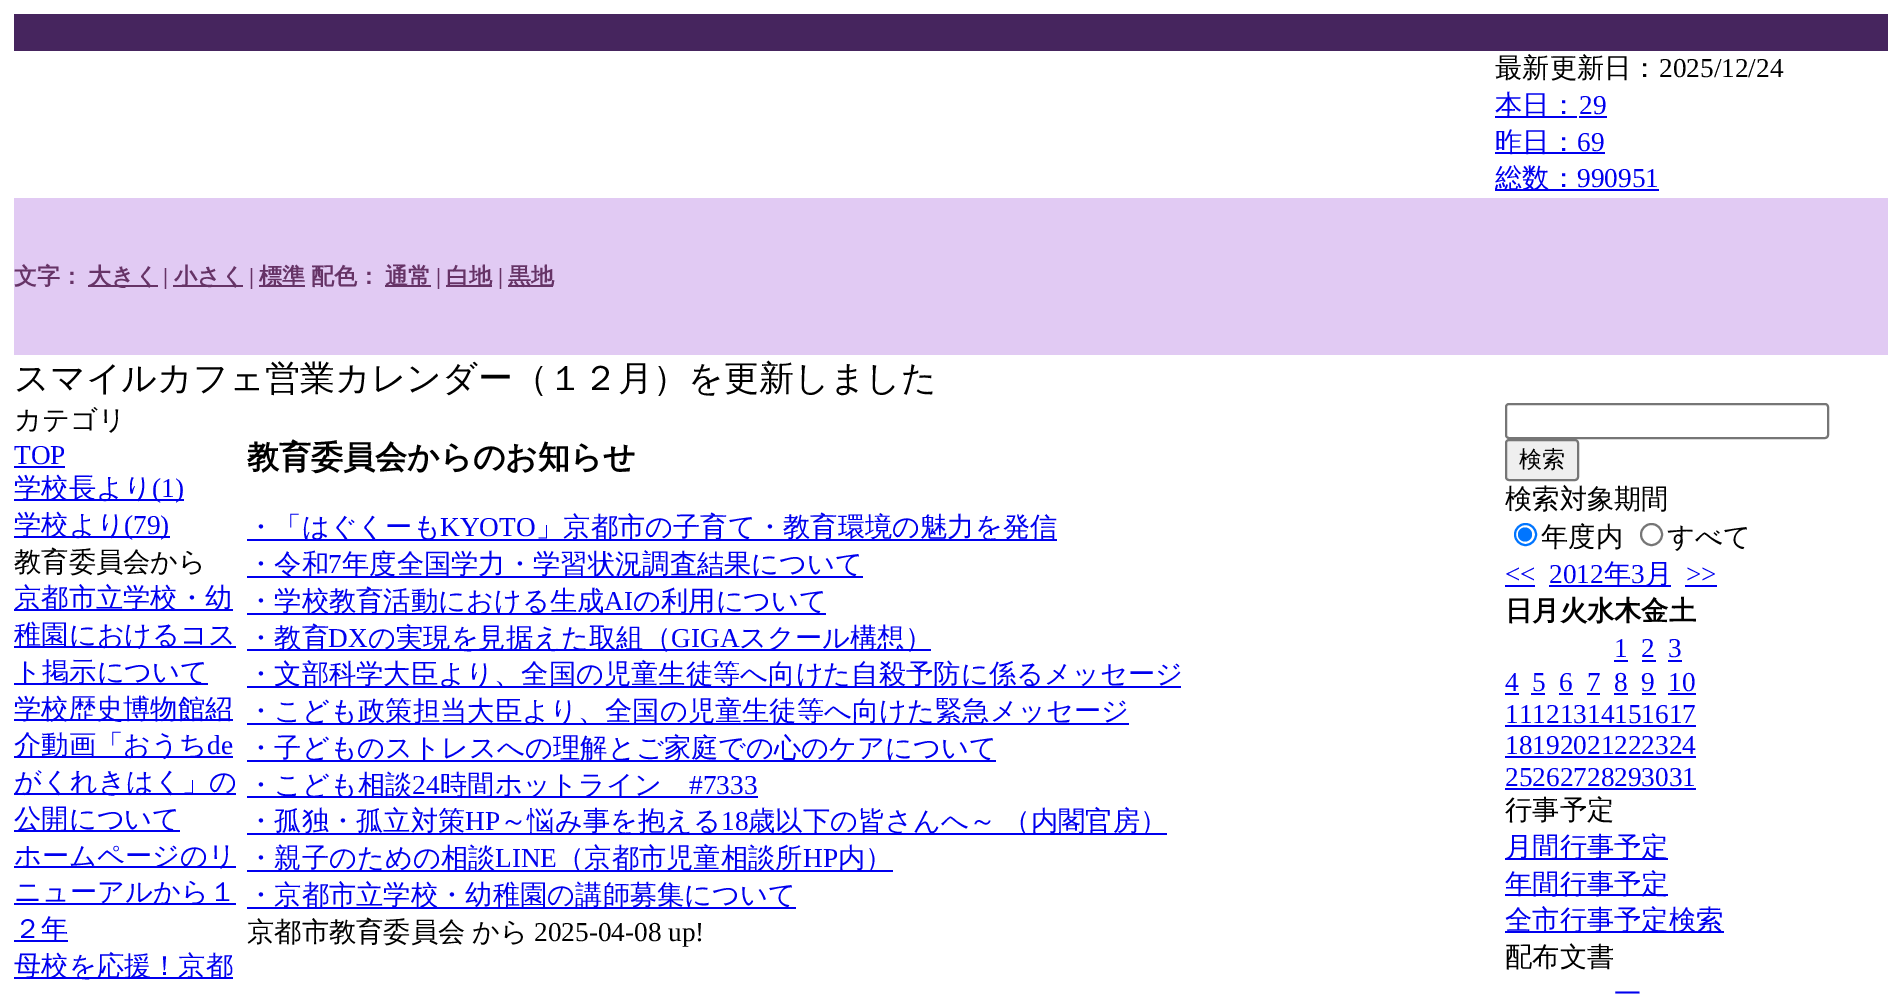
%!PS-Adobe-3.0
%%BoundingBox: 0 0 1902 994
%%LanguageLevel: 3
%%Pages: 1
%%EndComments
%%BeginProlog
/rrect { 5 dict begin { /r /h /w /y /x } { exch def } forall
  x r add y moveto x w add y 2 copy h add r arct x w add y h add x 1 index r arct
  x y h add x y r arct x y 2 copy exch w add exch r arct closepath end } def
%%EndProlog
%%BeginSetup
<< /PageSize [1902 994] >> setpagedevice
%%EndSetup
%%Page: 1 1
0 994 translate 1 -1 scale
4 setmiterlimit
1 setgray
0 0 1902 994 rectfill
0.275 0.145 0.369 setrgbcolor
14 14 1874 37 rectfill
0 0 0.933 setrgbcolor
1495 116 82 2 rectfill
1579 116 28 2 rectfill
1495 152 110 2 rectfill
1495 189 164 2 rectfill
0.882 0.792 0.953 setrgbcolor
14 198 1874 157 rectfill
0.4 0.2 0.4 setrgbcolor
88 285 70 2 rectfill
173 285 70 2 rectfill
259 285 46 2 rectfill
385 285 46 2 rectfill
446 285 46 2 rectfill
508 285 45 2 rectfill
0 0 0.933 setrgbcolor
14 466 51 2 rectfill
14 499 170 2 rectfill
14 536 156 2 rectfill
14 609 219 2 rectfill
14 646 222 2 rectfill
14 683 194 2 rectfill
14 719 219 2 rectfill
14 756 219 2 rectfill
14 793 222 2 rectfill
14 830 166 2 rectfill
14 866 222 2 rectfill
14 903 222 2 rectfill
14 940 54 2 rectfill
14 977 219 2 rectfill
247 539 810 2 rectfill
247 576 616 2 rectfill
247 613 579 2 rectfill
247 649 684 2 rectfill
247 686 934 2 rectfill
247 723 882 2 rectfill
247 760 749 2 rectfill
247 796 511 2 rectfill
247 833 920 2 rectfill
247 870 646 2 rectfill
247 907 549 2 rectfill
0.463 setgray
2 setlinewidth
1506 404 322 34 3 rrect stroke
0.937 setgray
1506 440 72 40 3 rrect gsave fill grestore
0.463 setgray
stroke
0 0.459 1 setrgbcolor
newpath 1525.5 534.5 10.5 0 360 arc closepath stroke
newpath 1525 534.5 7 0 360 arc closepath fill
0.463 setgray
newpath 1651.5 534.5 10.5 0 360 arc closepath stroke
0 0 0.933 setrgbcolor
1505 585 30 2 rectfill
1549 585 122 2 rectfill
1685 585 32 2 rectfill
1614 660 14 2 rectfill
1642 660 14 2 rectfill
1668 660 14 2 rectfill
1505 693 14 2 rectfill
1531 693 14 2 rectfill
1559 693 14 2 rectfill
1587 693 13 2 rectfill
1614 693 14 2 rectfill
1642 693 14 2 rectfill
1668 693 28 2 rectfill
1505 725 191 2 rectfill
1505 756 191 2 rectfill
1505 788 191 2 rectfill
1505 858 163 2 rectfill
1505 894 163 2 rectfill
1505 931 219 2 rectfill
/WenQuanYiZenHei-Medium [27.3 0 0 -27.3 0 0] selectfont
0 setgray
1495 77 moveto (最新更新日：) show
/LiberationSerif-Regular [27.3 0 0 -27.3 0 0] selectfont
1659 77 moveto (2025/12/24) show
/WenQuanYiZenHei-Medium [27.3 0 0 -27.3 0 0] selectfont
0 0 0.933 setrgbcolor
1495 114 moveto (本日：) show
/LiberationSerif-Regular [27.3 0 0 -27.3 0 0] selectfont
1579 114 moveto (29) show
/WenQuanYiZenHei-Medium [27.3 0 0 -27.3 0 0] selectfont
1495 151 moveto (昨日：) show
/LiberationSerif-Regular [27.3 0 0 -27.3 0 0] selectfont
1577 151 moveto (69) show
/WenQuanYiZenHei-Medium [27.3 0 0 -27.3 0 0] selectfont
1495 187 moveto (総数：) show
/LiberationSerif-Regular [27.3 0 0 -27.3 0 0] selectfont
1577 187 moveto (990951) show
/WenQuanYiZenHei-Bold [23 0 0 -23 0 0] selectfont
0.4 0.2 0.4 setrgbcolor
14 284 moveto (文字：) show
88 284 moveto (大きく) show
/LiberationSerif-Bold [23 0 0 -23 0 0] selectfont
163 284 moveto (|) show
/WenQuanYiZenHei-Bold [23 0 0 -23 0 0] selectfont
174 284 moveto (小さく) show
/LiberationSerif-Bold [23 0 0 -23 0 0] selectfont
249 284 moveto (|) show
/WenQuanYiZenHei-Bold [23 0 0 -23 0 0] selectfont
259 284 moveto (標準) show
311 284 moveto (配色：) show
385 284 moveto (通常) show
/LiberationSerif-Bold [23 0 0 -23 0 0] selectfont
436 284 moveto (|) show
/WenQuanYiZenHei-Bold [23 0 0 -23 0 0] selectfont
446 284 moveto (白地) show
/LiberationSerif-Bold [23 0 0 -23 0 0] selectfont
498 284 moveto (|) show
/WenQuanYiZenHei-Bold [23 0 0 -23 0 0] selectfont
508 284 moveto (黒地) show
/WenQuanYiZenHei-Medium [35 0 0 -35 0 0] selectfont
0 setgray
14 390 moveto (スマイルカフェ営業カレンダー（１２月）を更新しました) show
/WenQuanYiZenHei-Medium [27.3 0 0 -27.3 0 0] selectfont
14 429 moveto (カテゴリ) show
/LiberationSerif-Regular [27.3 0 0 -27.3 0 0] selectfont
0 0 0.933 setrgbcolor
14 464 moveto (TOP) show
/WenQuanYiZenHei-Medium [27.3 0 0 -27.3 0 0] selectfont
14 497 moveto (学校長より) show
/LiberationSerif-Regular [27.3 0 0 -27.3 0 0] selectfont
152 497 moveto (\(1\)) show
/WenQuanYiZenHei-Medium [27.3 0 0 -27.3 0 0] selectfont
14 534 moveto (学校より) show
/LiberationSerif-Regular [27.3 0 0 -27.3 0 0] selectfont
124 534 moveto (\(79\)) show
/WenQuanYiZenHei-Medium [27.3 0 0 -27.3 0 0] selectfont
0 setgray
14 571 moveto (教育委員会から) show
0 0 0.933 setrgbcolor
14 607 moveto (京都市立学校・幼) show
14 644 moveto (稚園におけるコス) show
14 681 moveto (ト掲示について) show
14 718 moveto (学校歴史博物館紹) show
14 754 moveto (介動画「おうち) show
/LiberationSerif-Regular [27.3 0 0 -27.3 0 0] selectfont
207 754 moveto (de) show
/WenQuanYiZenHei-Medium [27.3 0 0 -27.3 0 0] selectfont
14 791 moveto (がくれきはく」の) show
14 828 moveto (公開について) show
14 865 moveto (ホームページのリ) show
14 901 moveto (ニューアルから１) show
14 938 moveto (２年) show
14 975 moveto (母校を応援！京都) show
/WenQuanYiZenHei-Bold [32 0 0 -32 0 0] selectfont
0 setgray
247 468 moveto (教育委員会からのお知らせ) show
/WenQuanYiZenHei-Medium [27.3 0 0 -27.3 0 0] selectfont
0 0 0.933 setrgbcolor
247 536 moveto (・「はぐくーも) show
/LiberationSerif-Regular [27.3 0 0 -27.3 0 0] selectfont
440 536 moveto (KYOTO) show
/WenQuanYiZenHei-Medium [27.3 0 0 -27.3 0 0] selectfont
536 536 moveto (」京都市の子育て・教育環境の魅力を発信) show
247 573 moveto (・令和) show
/LiberationSerif-Regular [27.3 0 0 -27.3 0 0] selectfont
328 573 moveto (7) show
/WenQuanYiZenHei-Medium [27.3 0 0 -27.3 0 0] selectfont
342 573 moveto (年度全国学力・学習状況調査結果について) show
247 610 moveto (・学校教育活動における生成) show
/LiberationSerif-Regular [27.3 0 0 -27.3 0 0] selectfont
604 610 moveto (AI) show
/WenQuanYiZenHei-Medium [27.3 0 0 -27.3 0 0] selectfont
633 610 moveto (の利用について) show
247 647 moveto (・教育) show
/LiberationSerif-Regular [27.3 0 0 -27.3 0 0] selectfont
328 647 moveto (DX) show
/WenQuanYiZenHei-Medium [27.3 0 0 -27.3 0 0] selectfont
368 647 moveto (の実現を見据えた取組（) show
/LiberationSerif-Regular [27.3 0 0 -27.3 0 0] selectfont
671 647 moveto (GIGA) show
/WenQuanYiZenHei-Medium [27.3 0 0 -27.3 0 0] selectfont
739 647 moveto (スクール構想）) show
247 683 moveto (・文部科学大臣より、全国の児童生徒等へ向けた自殺予防に係るメッセージ) show
247 720 moveto (・こども政策担当大臣より、全国の児童生徒等へ向けた緊急メッセージ) show
247 757 moveto (・子どものストレスへの理解とご家庭での心のケアについて) show
247 794 moveto (・こども相談) show
/LiberationSerif-Regular [27.3 0 0 -27.3 0 0] selectfont
412 794 moveto (24) show
/WenQuanYiZenHei-Medium [27.3 0 0 -27.3 0 0] selectfont
440 794 moveto (時間ホットライン) show
/LiberationSerif-Regular [27.3 0 0 -27.3 0 0] selectfont
689 794 moveto (#7333) show
/WenQuanYiZenHei-Medium [27.3 0 0 -27.3 0 0] selectfont
247 830 moveto (・孤独・孤立対策) show
/LiberationSerif-Regular [27.3 0 0 -27.3 0 0] selectfont
465 830 moveto (HP) show
/WenQuanYiZenHei-Medium [27.3 0 0 -27.3 0 0] selectfont
500 830 moveto (～悩み事を抱える) show
/LiberationSerif-Regular [27.3 0 0 -27.3 0 0] selectfont
721 830 moveto (18) show
/WenQuanYiZenHei-Medium [27.3 0 0 -27.3 0 0] selectfont
748 830 moveto -1 0 32 (歳以下の皆さんへ～ （内閣官房）) widthshow
247 867 moveto (・親子のための相談) show
/LiberationSerif-Regular [27.3 0 0 -27.3 0 0] selectfont
495 867 moveto (LINE) show
/WenQuanYiZenHei-Medium [27.3 0 0 -27.3 0 0] selectfont
557 867 moveto (（京都市児童相談所) show
/LiberationSerif-Regular [27.3 0 0 -27.3 0 0] selectfont
803 867 moveto (HP) show
/WenQuanYiZenHei-Medium [27.3 0 0 -27.3 0 0] selectfont
838 867 moveto (内）) show
247 904 moveto (・京都市立学校・幼稚園の講師募集について) show
0 setgray
247 941 moveto (京都市教育委員会) show
472 941 moveto (から) show
/LiberationSerif-Regular [27.3 0 0 -27.3 0 0] selectfont
534 941 moveto (2025-04-08 up!) show
/WenQuanYiZenHei-Medium [23 0 0 -23 0 0] selectfont
1519 467 moveto (検索) show
/WenQuanYiZenHei-Medium [27.3 0 0 -27.3 0 0] selectfont
1505 508 moveto (検索対象期間) show
1541 546 moveto (年度内) show
1667 546 moveto (すべて) show
/LiberationSerif-Regular [27.3 0 0 -27.3 0 0] selectfont
0 0 0.933 setrgbcolor
1505 583 moveto (<<) show
1549 583 moveto (2012) show
/WenQuanYiZenHei-Medium [27.3 0 0 -27.3 0 0] selectfont
1604 583 moveto (年) show
/LiberationSerif-Regular [27.3 0 0 -27.3 0 0] selectfont
1631 583 moveto (3) show
/WenQuanYiZenHei-Medium [27.3 0 0 -27.3 0 0] selectfont
1645 583 moveto (月) show
/LiberationSerif-Regular [27.3 0 0 -27.3 0 0] selectfont
1686 583 moveto (>>) show
/WenQuanYiZenHei-Bold [27.3 0 0 -27.3 0 0] selectfont
0 setgray
1505 620 moveto (日月火水木金土) show
/LiberationSerif-Regular [27.3 0 0 -27.3 0 0] selectfont
0 0 0.933 setrgbcolor
1614 657 moveto (1) show
1641 657 moveto (2) show
1668 657 moveto (3) show
1505 691 moveto (4) show
1532 691 moveto (5) show
1559 691 moveto (6) show
1587 691 moveto (7) show
1614 691 moveto (8) show
1641 691 moveto (9) show
1668 691 moveto (10) show
1505 723 moveto (11121314151617) show
1505 754 moveto (18192021222324) show
1505 786 moveto (25262728293031) show
/WenQuanYiZenHei-Medium [27.3 0 0 -27.3 0 0] selectfont
0 setgray
1505 819 moveto (行事予定) show
0 0 0.933 setrgbcolor
1505 856 moveto (月間行事予定) show
1505 893 moveto (年間行事予定) show
1505 929 moveto (全市行事予定検索) show
0 setgray
1505 966 moveto (配布文書) show
0 0 0.933 setrgbcolor
1614 1003 moveto (一) show
showpage
%%EOF
